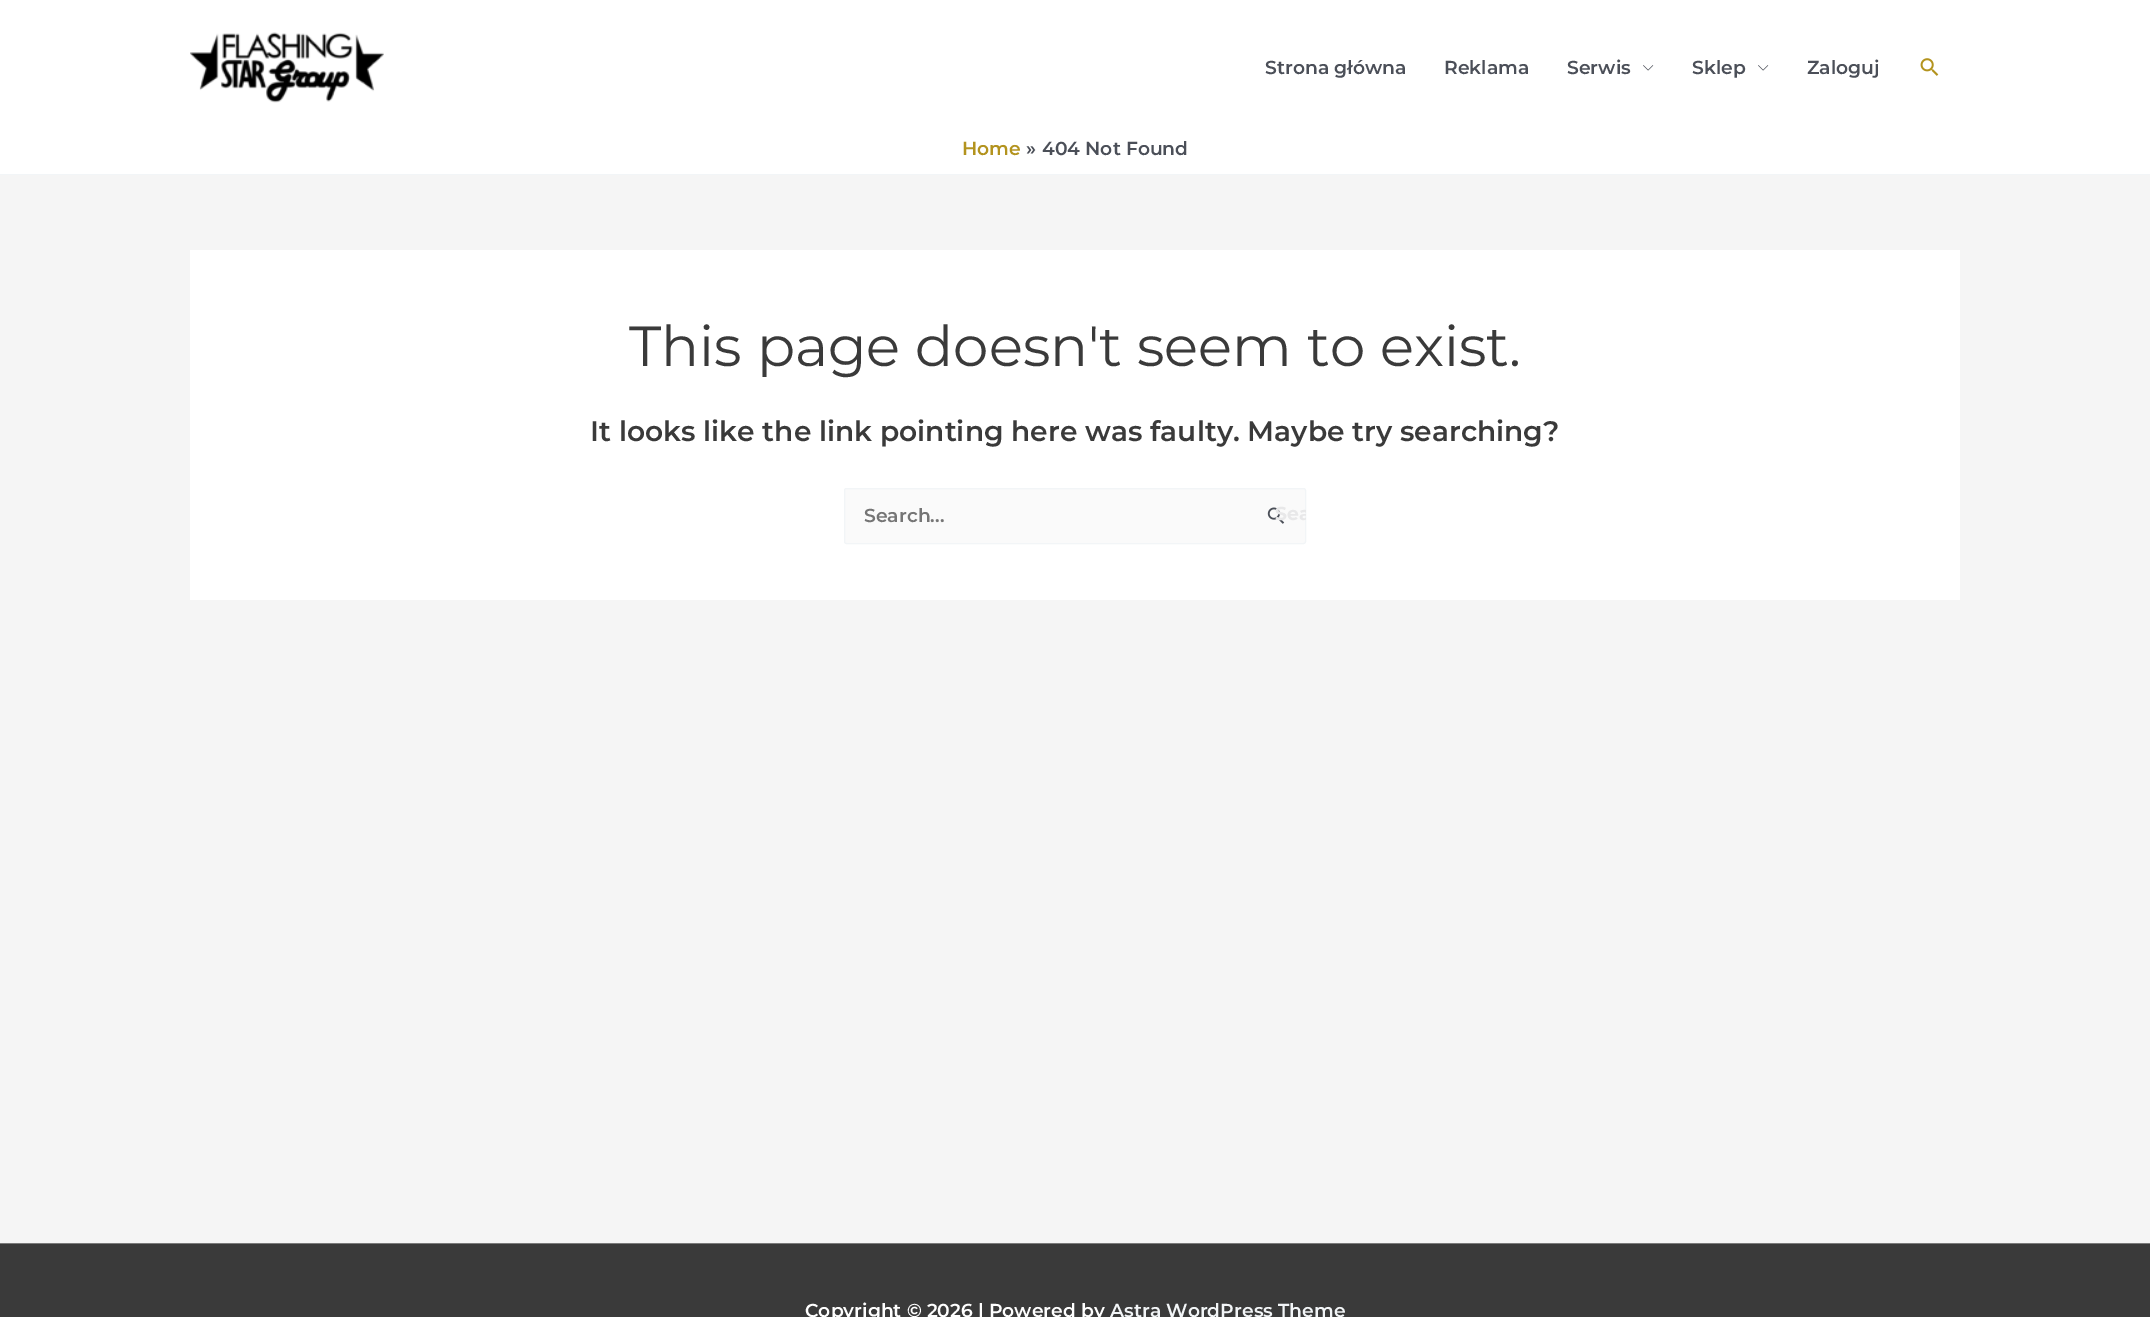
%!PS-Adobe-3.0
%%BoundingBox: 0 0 2150 1317
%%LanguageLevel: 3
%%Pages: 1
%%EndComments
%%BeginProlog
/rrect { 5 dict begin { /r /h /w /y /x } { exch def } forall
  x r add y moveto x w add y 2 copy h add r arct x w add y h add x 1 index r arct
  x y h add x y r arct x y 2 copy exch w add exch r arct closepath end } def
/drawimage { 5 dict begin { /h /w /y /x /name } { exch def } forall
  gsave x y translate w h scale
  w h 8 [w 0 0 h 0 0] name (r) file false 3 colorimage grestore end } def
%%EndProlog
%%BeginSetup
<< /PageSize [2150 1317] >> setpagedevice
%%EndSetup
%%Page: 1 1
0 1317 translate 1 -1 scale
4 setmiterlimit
0.961 setgray
0 0 2150 1317 rectfill
1 setgray
0 0 2150 174 rectfill
0.949 0.961 0.969 setrgbcolor
0 174 2150 1 rectfill
(images/1.raw) 190 32 194 71 drawimage
(images/2.raw) 1643 65 11 6 drawimage
(images/2.raw) 1758 65 11 6 drawimage
(images/3.raw) 1920 58 19 18 drawimage
1 setgray
190 250 1770 350 rectfill
0.98 setgray
844.5 488.5 461 55 2 rrect gsave fill grestore
0.949 0.961 0.969 setrgbcolor
stroke
(images/4.raw) 1267 507 18 17 drawimage
0.478 setgray
0 1243 2150 1 rectfill
0.227 setgray
0 1244 2150 73 rectfill
/Montserrat-SemiBold [18.75 0 0 -18.75 0 0] selectfont
0.294 0.31 0.345 setrgbcolor
1265 74 moveto (Strona główna) show
1444 74 moveto (Reklama) show
1567 74 moveto (Serwis) show
1692 74 moveto (Sklep) show
1807 74 moveto (Zaloguj) show
0.702 0.576 0.118 setrgbcolor
962 155 moveto (Home) show
0.294 0.31 0.345 setrgbcolor
1026 155 moveto (») show
1042 155 moveto (404 Not Found) show
/Montserrat-Regular [56.25 0 0 -56.25 0 0] selectfont
0.227 setgray
629 366 moveto (This page doesn't seem to exist.) show
/Montserrat-SemiBold [28.1 0 0 -28.1 0 0] selectfont
590 441 moveto (It looks like the link pointing here was faulty. Maybe try searching?) show
gsave
1250 488 56 51 2.5 rrect clip newpath
/Montserrat-Bold [18.75 0 0 -18.75 0 0] selectfont
0.91 0.91 0.914 setrgbcolor
1275 520 moveto (Sea) show
grestore
/Montserrat-SemiBold [18.75 0 0 -18.75 0 0] selectfont
0.459 setgray
864 522 moveto (Search...) show
1 setgray
805 1317 moveto (Copyright © 2026 | Powered by) show
0.949 0.961 0.969 setrgbcolor
1110 1317 moveto (Astra WordPress Theme) show
showpage
%%EOF
